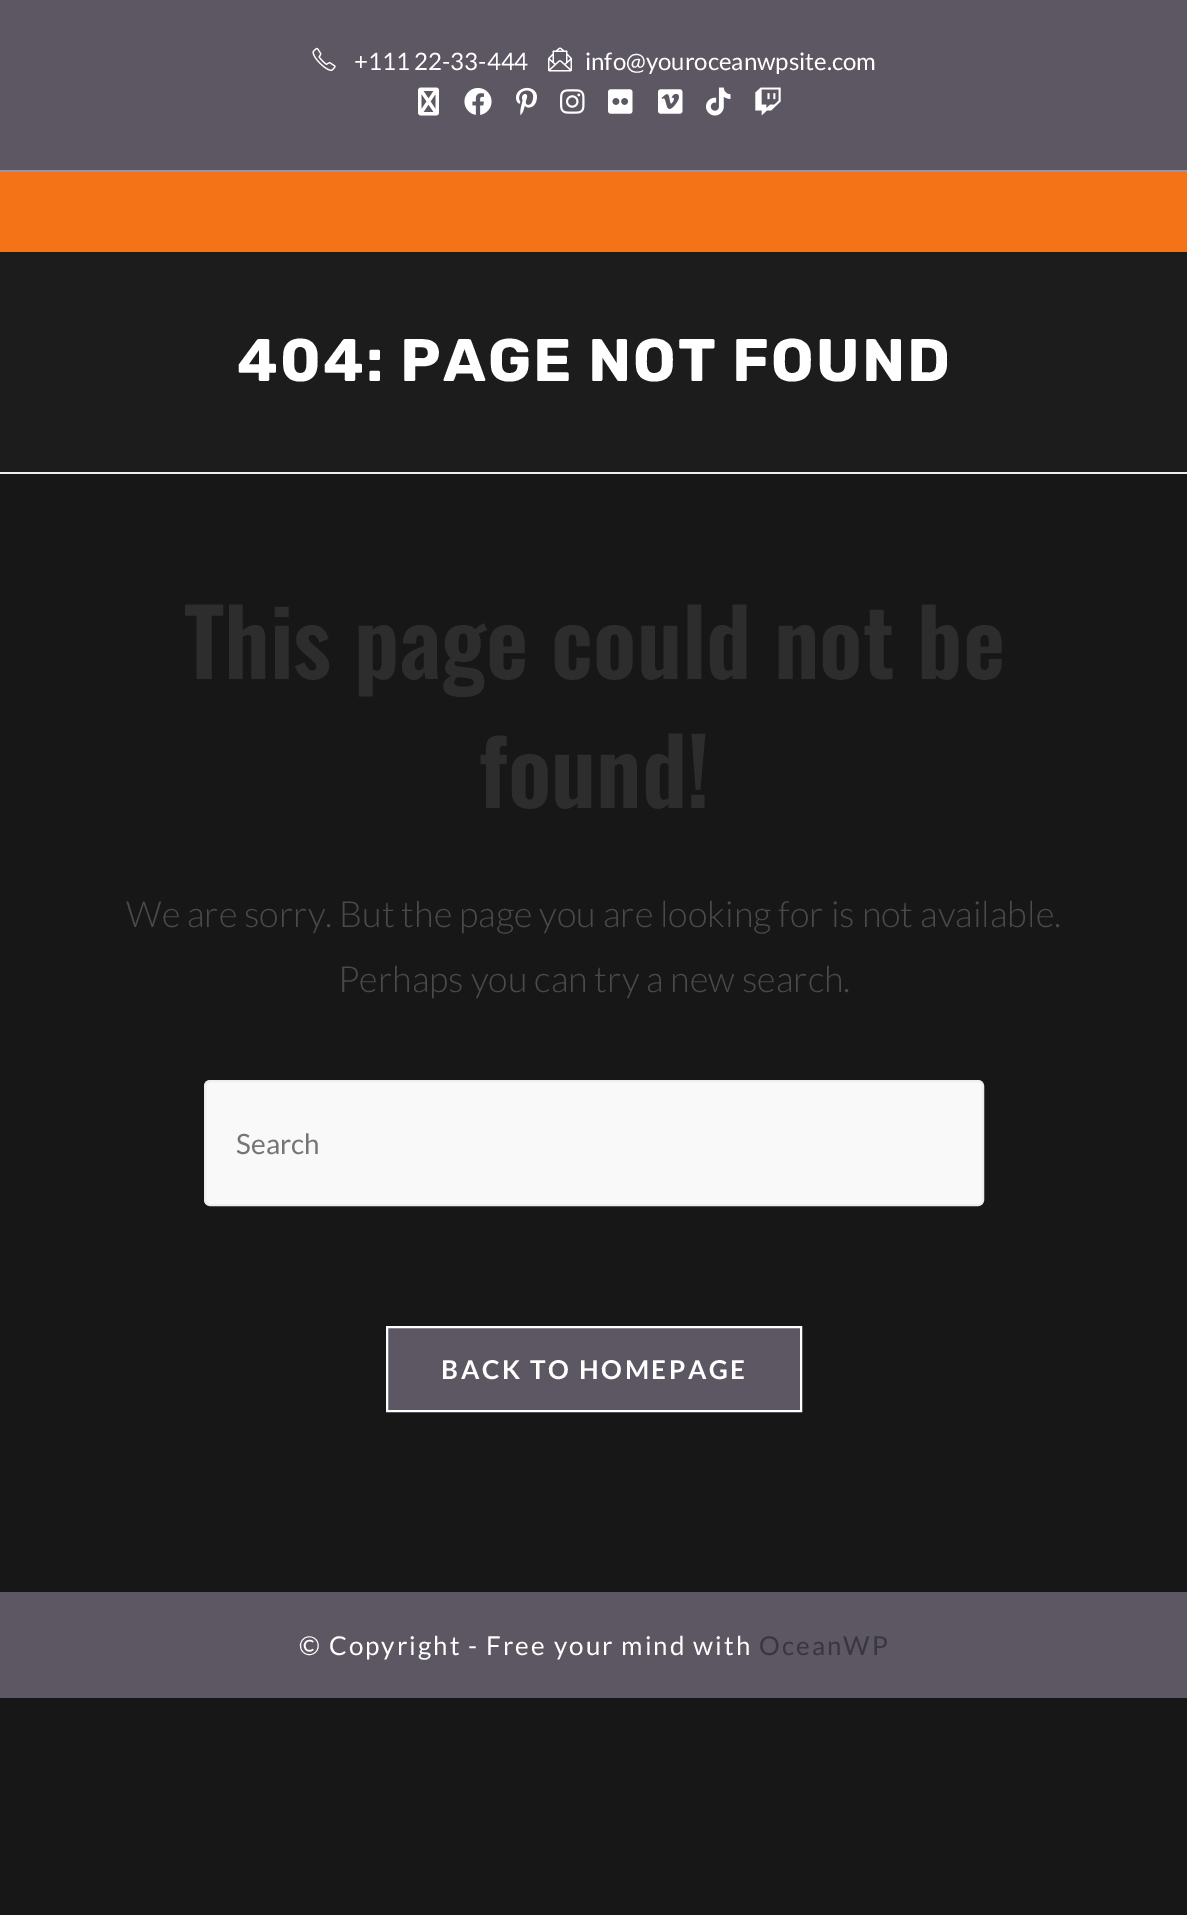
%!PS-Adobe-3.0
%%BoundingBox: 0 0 1187 1915
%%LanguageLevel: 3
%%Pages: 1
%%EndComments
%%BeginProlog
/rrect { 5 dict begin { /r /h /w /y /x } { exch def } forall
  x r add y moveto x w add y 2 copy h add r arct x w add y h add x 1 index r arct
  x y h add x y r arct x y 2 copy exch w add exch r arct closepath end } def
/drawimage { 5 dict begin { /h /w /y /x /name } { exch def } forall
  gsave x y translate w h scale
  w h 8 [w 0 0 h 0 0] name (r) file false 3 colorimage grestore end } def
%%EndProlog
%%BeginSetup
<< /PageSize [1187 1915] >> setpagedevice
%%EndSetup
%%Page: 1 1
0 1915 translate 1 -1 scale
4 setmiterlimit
0.09 setgray
0 0 1187 1915 rectfill
0.361 0.341 0.388 setrgbcolor
0 0 1187 170 rectfill
0.608 0.58 0.659 setrgbcolor
0 170 1187 2 rectfill
(images/1.raw) 312 47 24 25 drawimage
(images/2.raw) 548 47 24 25 drawimage
(images/3.raw) 418 87 21 29 drawimage
(images/4.raw) 464 87 28 28 drawimage
(images/5.raw) 516 87 21 29 drawimage
(images/6.raw) 560 89 25 25 drawimage
(images/7.raw) 608 89 25 25 drawimage
(images/8.raw) 658 89 25 25 drawimage
(images/9.raw) 706 87 25 29 drawimage
(images/10.raw) 755 87 26 29 drawimage
0.957 0.451 0.09 setrgbcolor
0 172 1187 80 rectfill
0.11 setgray
0 252 1187 220 rectfill
0.933 setgray
0 472 1187 2 rectfill
0.976 setgray
205 1081 778 124 5 rrect gsave fill grestore
0.933 setgray
2 setlinewidth
stroke
0.361 0.341 0.388 setrgbcolor
newpath 387 1327 moveto 801 1327 lineto 801 1411 lineto 387 1411 lineto closepath gsave fill grestore
1 setgray
stroke
0.361 0.341 0.388 setrgbcolor
0 1592 1187 106 rectfill
/Lato-Regular [24 0 0 -24 0 0] selectfont
1 setgray
354 70 moveto (+111 22-33-444) show
585 70 moveto (info@youroceanwpsite.com) show
/Rubik-Light [60 0 0 -60 0 0] selectfont
237 381 moveto 2 0 (404: PAGE NOT FOUND) ashow
/Oswald-SemiBold [92 0 0 -92 0 0] selectfont
0.176 setgray
184 679 moveto (This page could not be) show
479 808 moveto (found!) show
/Lato-Light [36 0 0 -36 0 0] selectfont
0.29 setgray
126 927 moveto (We are sorry. But the page you are looking for is not available.) show
338 992 moveto (Perhaps you can try a new search.) show
/Lato-Regular [28 0 0 -28 0 0] selectfont
0.459 setgray
236 1154 moveto (Search) show
/Lato-Bold [26 0 0 -26 0 0] selectfont
1 setgray
441 1379 moveto 2.6 0 (BACK TO HOMEPAGE) ashow
/Lato-Regular [26 0 0 -26 0 0] selectfont
299 1655 moveto 2 0 (© Copyright - Free your mind with) ashow
0.216 0.216 0.239 setrgbcolor
759 1655 moveto 2 0 (OceanWP) ashow
showpage
%%EOF
